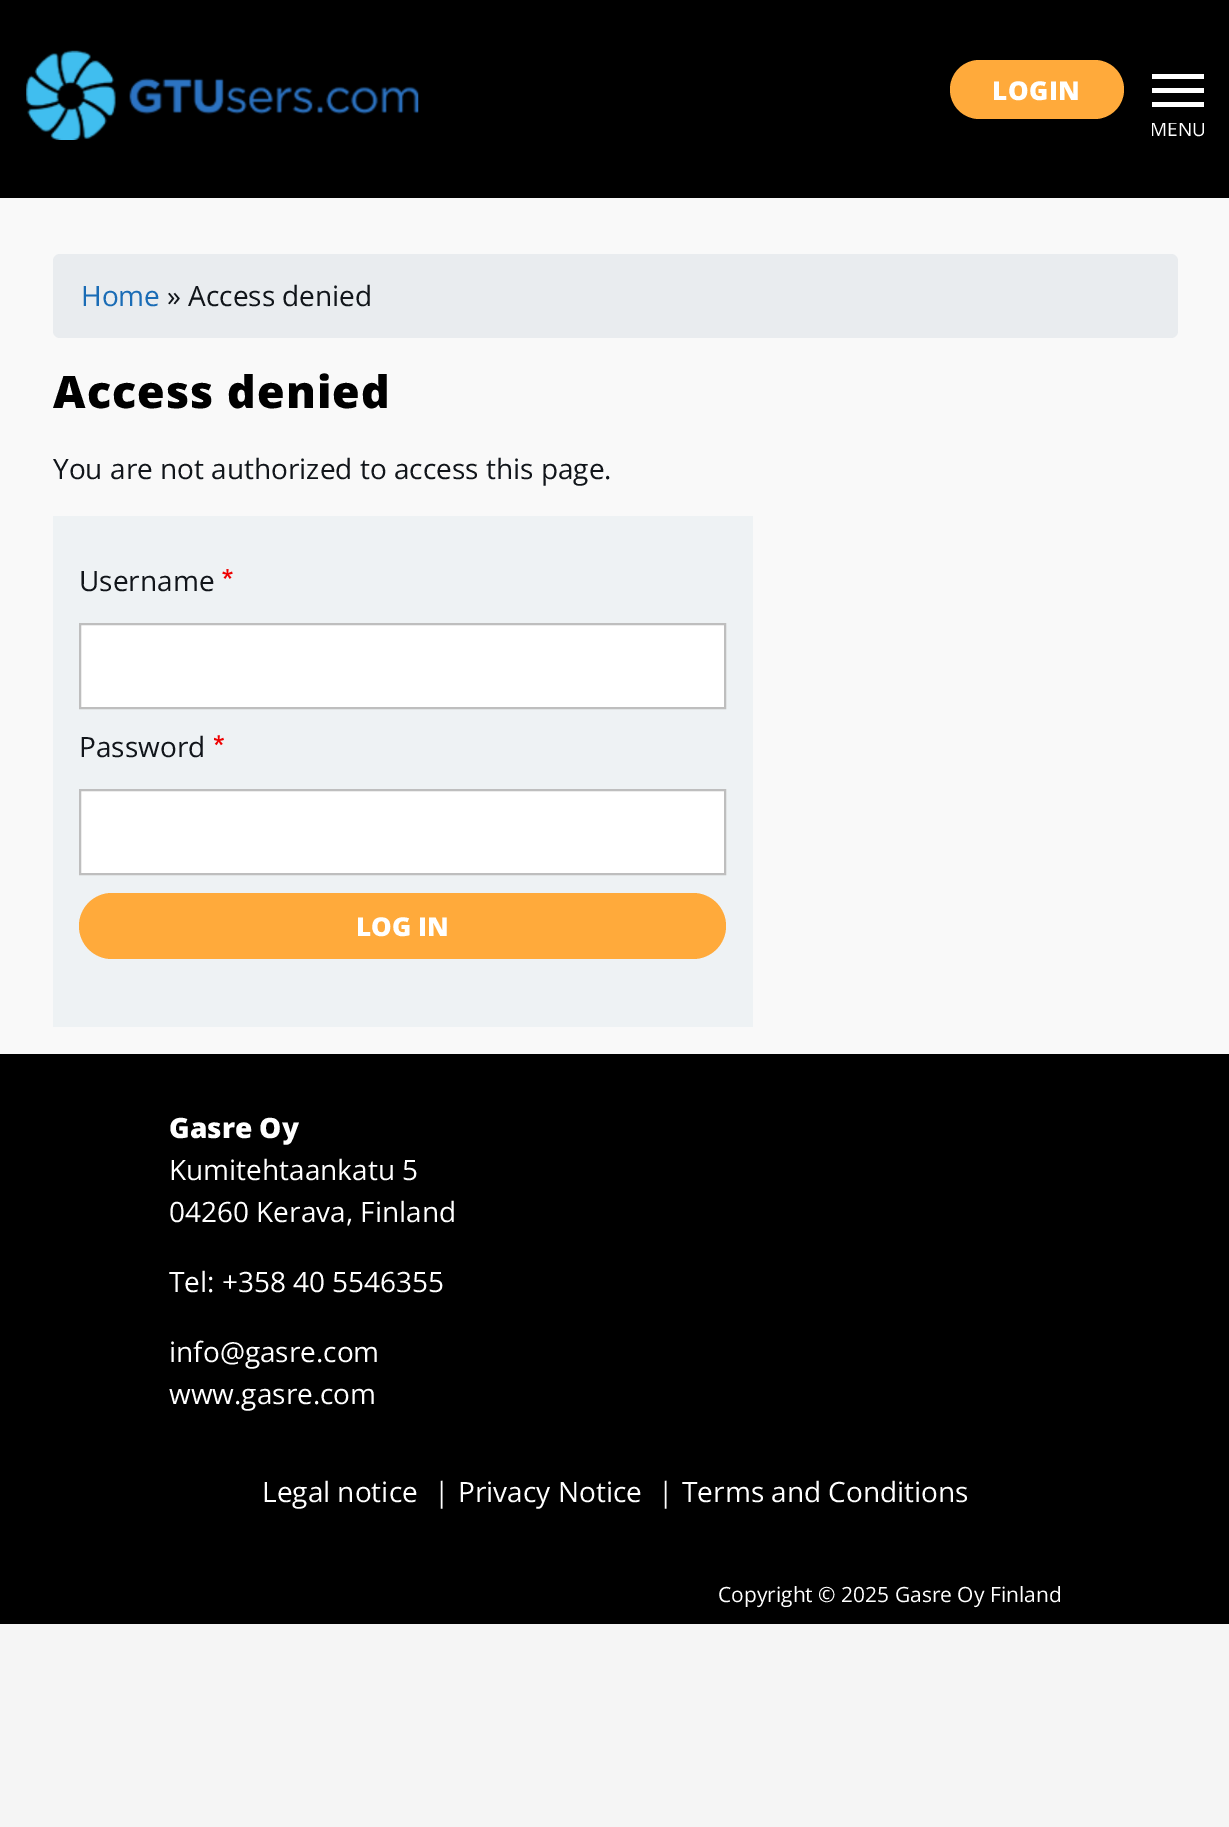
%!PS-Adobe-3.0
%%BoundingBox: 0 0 1229 1827
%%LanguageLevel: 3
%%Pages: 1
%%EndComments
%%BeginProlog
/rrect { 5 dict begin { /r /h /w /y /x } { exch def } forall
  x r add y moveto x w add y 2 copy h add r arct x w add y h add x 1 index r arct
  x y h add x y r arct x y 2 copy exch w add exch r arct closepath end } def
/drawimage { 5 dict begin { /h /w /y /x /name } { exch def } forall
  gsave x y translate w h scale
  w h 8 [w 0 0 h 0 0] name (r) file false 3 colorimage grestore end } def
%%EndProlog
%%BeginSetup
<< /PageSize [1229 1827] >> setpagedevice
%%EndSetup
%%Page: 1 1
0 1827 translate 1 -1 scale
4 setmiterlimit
0.961 setgray
0 0 1229 1827 rectfill
0 setgray
0 0 1229 198 rectfill
(images/1.raw) 26 50 393 90 drawimage
1 0.667 0.231 setrgbcolor
950 60 174 59 29.5 rrect fill
1 setgray
1152 74 52 5 rectfill
1152 88 52 5 rectfill
1152 102 52 5 rectfill
0.976 setgray
0 198 1229 856 rectfill
0.914 0.925 0.937 setrgbcolor
53 254 1125 84 7 rrect fill
0.933 0.949 0.957 setrgbcolor
53 516 700 511 rectfill
(images/2.raw) 222 569 11 10 drawimage
1 setgray
newpath 80 624 moveto 725 624 lineto 725 708 lineto 80 708 lineto closepath gsave fill grestore
0.745 setgray
2 setlinewidth
stroke
(images/3.raw) 214 735 10 11 drawimage
1 setgray
newpath 80 790 moveto 725 790 lineto 725 874 lineto 80 874 lineto closepath gsave fill grestore
0.745 setgray
stroke
1 0.667 0.231 setrgbcolor
79 893 647 66 33 rrect fill
0 setgray
0 1054 1229 570 rectfill
/OpenSans-ExtraBold [26 0 0 -26 0 0] selectfont
1 setgray
992 100 moveto 0.5 0 (LOGIN) ashow
gsave
1152 123 52 17 rectclip
/OpenSans-Regular [19 0 0 -19 0 0] selectfont
1150 136 moveto (MENU) show
grestore
/OpenSans-Regular [28 0 0 -28 0 0] selectfont
0.102 0.424 0.714 setrgbcolor
81 306 moveto (Home) show
0.067 0.082 0.102 setrgbcolor
167 306 moveto (» Access denied) show
/OpenSans-ExtraBold [44.75 0 0 -44.75 0 0] selectfont
0 setgray
53 408 moveto 1.1 0 (Access denied) ashow
/OpenSans-Regular [28 0 0 -28 0 0] selectfont
0.067 0.082 0.102 setrgbcolor
53 479 moveto (You are not authorized to access this page.) show
79 591 moveto (Username) show
79 757 moveto (Password) show
/OpenSans-ExtraBold [26 0 0 -26 0 0] selectfont
1 setgray
356 936 moveto (LOG IN) show
/OpenSans-ExtraBold [28 0 0 -28 0 0] selectfont
169 1138 moveto (Gasre Oy) show
/OpenSans-Regular [28 0 0 -28 0 0] selectfont
169 1180 moveto (Kumitehtaankatu 5) show
169 1222 moveto (04260 Kerava, Finland) show
169 1292 moveto (Tel: +358 40 5546355) show
169 1362 moveto (info@gasre.com) show
169 1404 moveto (www.gasre.com) show
262 1502 moveto (Legal notice) show
434 1502 moveto (|) show
458 1502 moveto (Privacy Notice) show
658 1502 moveto (|) show
682 1502 moveto (Terms and Conditions) show
/OpenSans-Regular [21 0 0 -21 0 0] selectfont
718 1602 moveto (Copyright © 2025 Gasre Oy Finland) show
showpage
%%EOF
